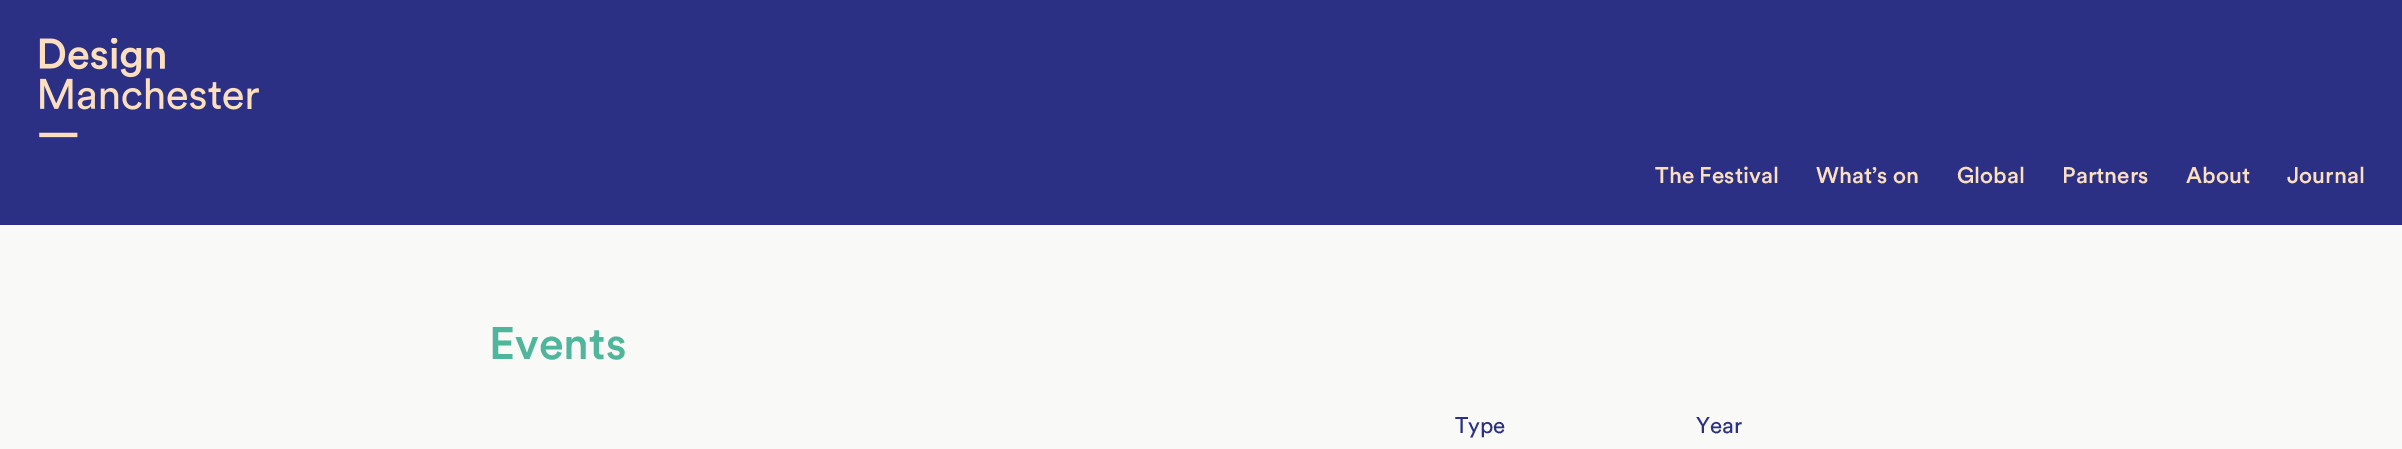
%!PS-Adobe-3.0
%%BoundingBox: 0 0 2402 449
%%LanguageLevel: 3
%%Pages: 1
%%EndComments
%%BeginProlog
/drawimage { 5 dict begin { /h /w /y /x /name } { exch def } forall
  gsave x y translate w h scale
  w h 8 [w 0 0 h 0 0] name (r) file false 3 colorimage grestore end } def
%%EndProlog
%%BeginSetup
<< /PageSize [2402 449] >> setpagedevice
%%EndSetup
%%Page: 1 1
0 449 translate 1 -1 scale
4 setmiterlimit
0.976 0.976 0.969 setrgbcolor
0 0 2402 449 rectfill
0.169 0.188 0.518 setrgbcolor
0 0 2402 225 rectfill
(images/1.raw) 39 38 220 100 drawimage
/Circular-Medium [22.5 0 0 -22.5 0 0] selectfont
0.988 0.875 0.749 setrgbcolor
1655 183 moveto (The Festival) show
1816 183 moveto (What’s on) show
1957 183 moveto (Global) show
2062 183 moveto (Partners) show
2186 183 moveto (About) show
2287 183 moveto (Journal) show
/Circular-Medium [45 0 0 -45 0 0] selectfont
0.31 0.71 0.608 setrgbcolor
489 359 moveto (Events) show
/Circular-Regular [22.5 0 0 -22.5 0 0] selectfont
0.169 0.188 0.518 setrgbcolor
1455 433 moveto (Type) show
1696 433 moveto (Year) show
showpage
%%EOF
